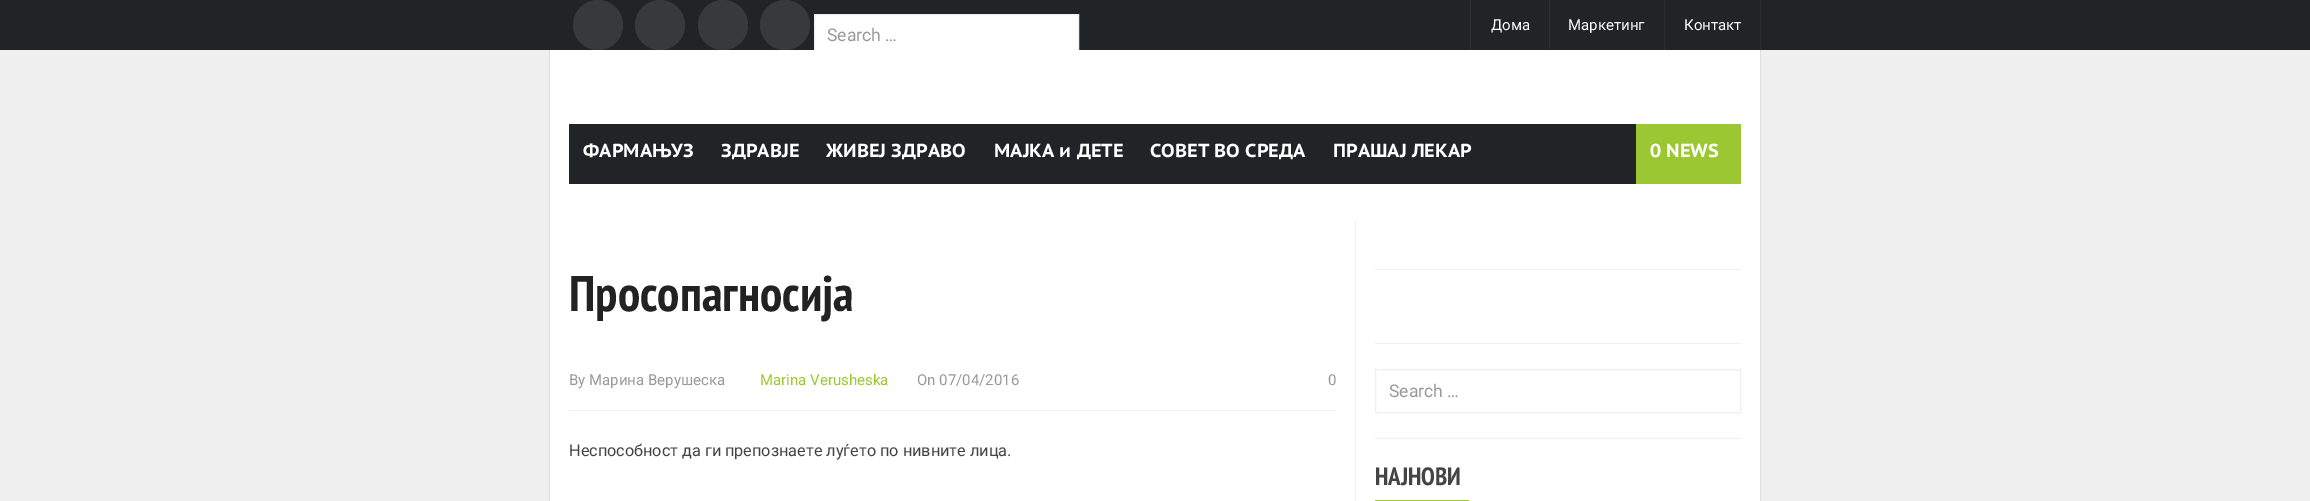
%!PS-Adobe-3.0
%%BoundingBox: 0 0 2310 501
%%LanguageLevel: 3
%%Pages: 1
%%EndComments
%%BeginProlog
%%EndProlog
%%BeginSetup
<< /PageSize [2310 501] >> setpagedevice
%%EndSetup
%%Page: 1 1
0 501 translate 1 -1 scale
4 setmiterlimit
0.129 0.137 0.153 setrgbcolor
0 0 2310 501 rectfill
0.22 0.224 0.239 setrgbcolor
newpath 598 25 25 0 360 arc closepath fill
newpath 660 25 25 0 360 arc closepath fill
newpath 723 25 25 0 360 arc closepath fill
newpath 785 25 25 0 360 arc closepath fill
1 setgray
815 15 263 35 rectfill
0.937 setgray
814.5 14.5 264 43 rectstroke
0.173 0.18 0.196 setrgbcolor
1549 0 1 50 rectfill
1470 0 1 50 rectfill
1664 0 1 50 rectfill
1760 0 1 50 rectfill
0.937 setgray
0 50 2310 451 rectfill
1 setgray
550 50 1210 451 rectfill
0.875 setgray
1760 50 1 451 rectfill
549 50 1 451 rectfill
0.129 0.137 0.153 setrgbcolor
569 124 1067 60 rectfill
0.608 0.784 0.196 setrgbcolor
1636 124 105 60 rectfill
0.937 setgray
1355 221 1 280 rectfill
569 410 767 1 rectfill
1375 269 366 1 rectfill
1375 343 366 1 rectfill
1375 438 366 1 rectfill
1375.5 369.5 365 43 rectstroke
0.608 0.784 0.196 setrgbcolor
1375 500 94 1 rectfill
/Roboto-Regular [17.5 0 0 -17.5 0 0] selectfont
0.6 setgray
827 41 moveto (Search …) show
/Roboto-Regular [15 0 0 -15 0 0] selectfont
1 setgray
1491 30 moveto (Дома) show
1568 30 moveto (Маркетинг) show
1684 30 moveto (Контакт) show
/PTSansCaption-Bold [18.75 0 0 -18.75 0 0] selectfont
583 157 moveto (ФАРМАЊУЗ) show
721 157 moveto (ЗДРАВЈЕ) show
826 157 moveto (ЖИВЕЈ ЗДРАВО) show
994 157 moveto (МАЈКА и ДЕТЕ) show
1150 157 moveto (СОВЕТ ВО СРЕДА) show
1333 157 moveto (ПРАШАЈ ЛЕКАР) show
1650 157 moveto (0 NEWS) show
/PTSansNarrow-Bold [50 0 0 -50 0 0] selectfont
0.133 setgray
569 311 moveto (Просопагносија) show
/Roboto-Regular [15 0 0 -15 0 0] selectfont
0.6 setgray
569 385 moveto (By Марина Верушеска) show
0.608 0.784 0.196 setrgbcolor
760 385 moveto (Marina Verusheska) show
0.6 setgray
917 385 moveto (On 07/04/2016) show
1328 385 moveto (0) show
/Roboto-Regular [16.25 0 0 -16.25 0 0] selectfont
0.267 setgray
569 456 moveto (Неспособност да ги препознаете луѓето по нивните лица.) show
/Roboto-Regular [17.5 0 0 -17.5 0 0] selectfont
0.6 setgray
1389 397 moveto (Search …) show
/PTSansNarrow-Bold [25 0 0 -25 0 0] selectfont
0.267 setgray
1375 485 moveto (НАЈНОВИ) show
showpage
%%EOF
